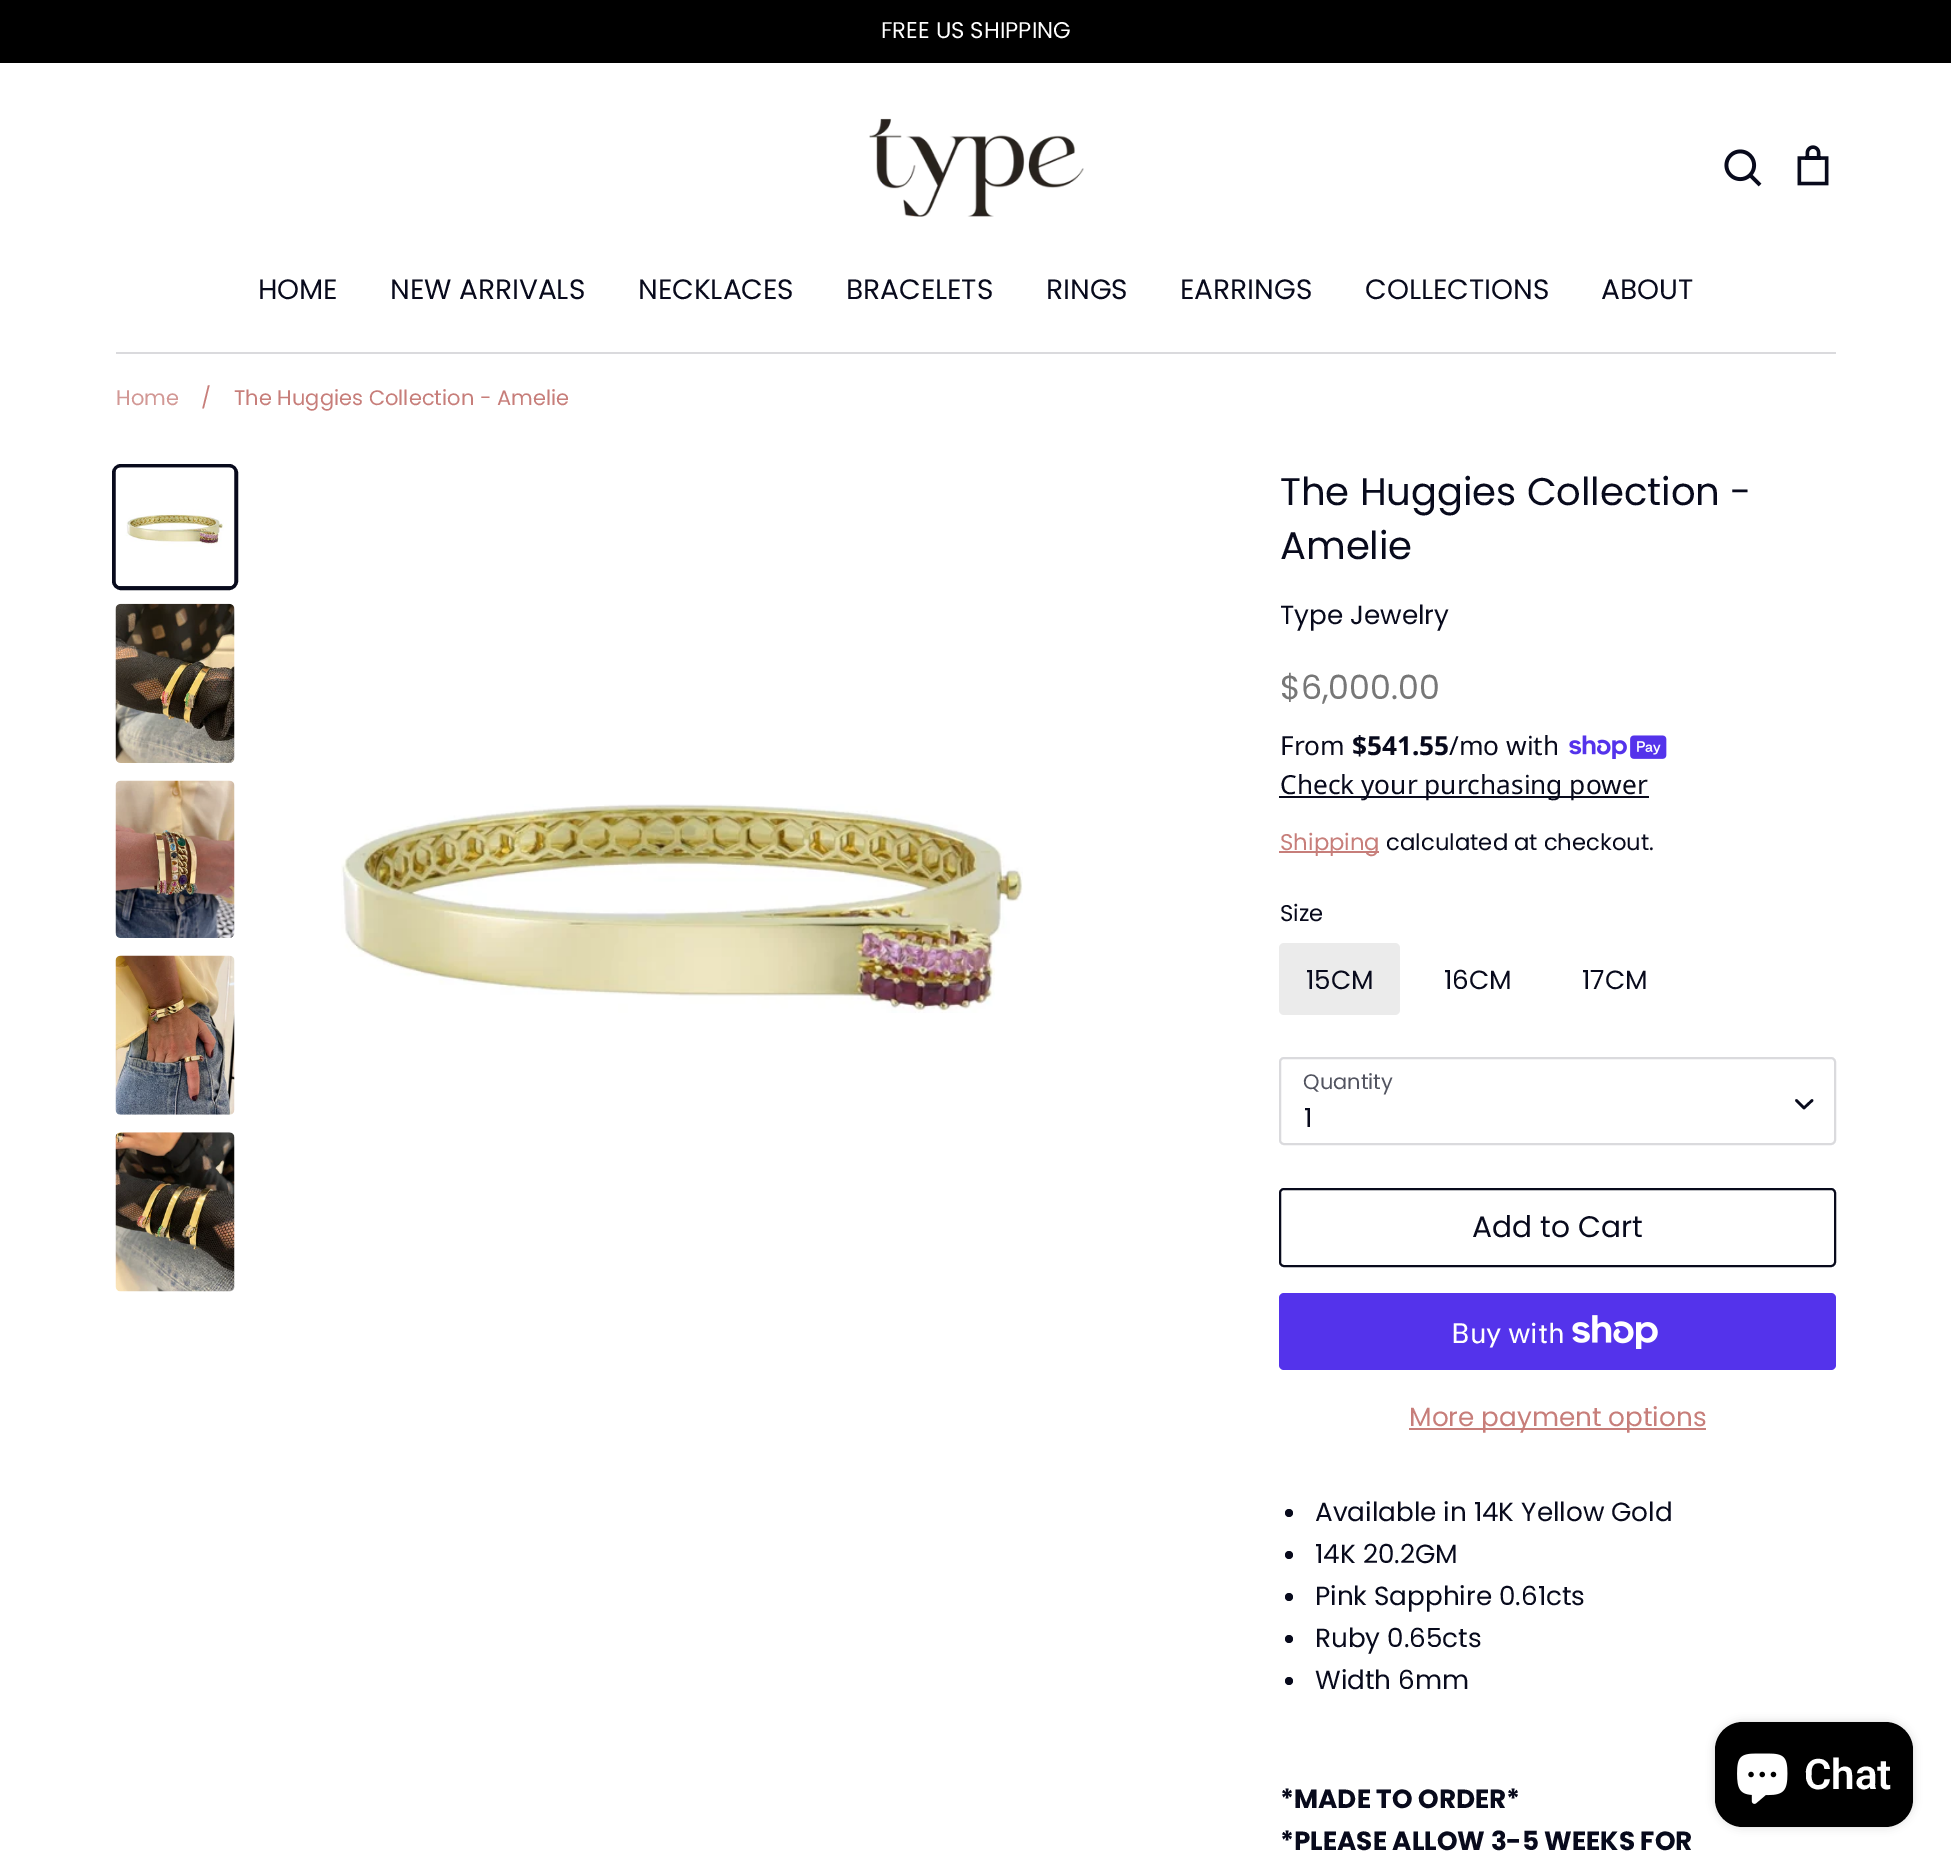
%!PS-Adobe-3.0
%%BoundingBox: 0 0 1951 1863
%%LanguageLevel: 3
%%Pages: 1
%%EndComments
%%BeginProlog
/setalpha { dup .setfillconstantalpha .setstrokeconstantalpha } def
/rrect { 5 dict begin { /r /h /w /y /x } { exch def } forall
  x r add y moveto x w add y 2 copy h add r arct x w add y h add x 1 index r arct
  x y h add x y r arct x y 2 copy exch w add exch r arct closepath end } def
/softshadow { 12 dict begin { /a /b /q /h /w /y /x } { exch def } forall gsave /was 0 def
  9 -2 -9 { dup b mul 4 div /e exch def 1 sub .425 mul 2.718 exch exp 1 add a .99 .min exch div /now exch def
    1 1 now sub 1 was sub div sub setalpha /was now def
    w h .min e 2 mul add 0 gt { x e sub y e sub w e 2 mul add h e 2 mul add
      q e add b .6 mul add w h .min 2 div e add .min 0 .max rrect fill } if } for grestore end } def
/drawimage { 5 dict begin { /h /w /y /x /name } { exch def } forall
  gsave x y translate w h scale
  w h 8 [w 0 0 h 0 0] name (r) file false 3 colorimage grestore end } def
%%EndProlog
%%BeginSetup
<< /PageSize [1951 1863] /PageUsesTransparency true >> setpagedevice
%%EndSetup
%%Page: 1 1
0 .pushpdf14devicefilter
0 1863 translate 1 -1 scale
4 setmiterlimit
1 setgray
0 0 1951 1863 rectfill
0 setgray
0 0 1951 63 rectfill
(images/1.raw) 869 118 215 99 drawimage
(images/2.raw) 1724 149 38 38 drawimage
(images/3.raw) 1797 145 32 41 drawimage
0.855 0.855 0.867 setrgbcolor
116 352 1720 2 rectfill
0.031 0.039 0.11 setrgbcolor
4 setlinewidth
114 466 122 122 7 rrect stroke
(images/4.raw) 115 467 120 120 drawimage
(images/5.raw) 115 603 120 160 drawimage
(images/6.raw) 115 780 120 158 drawimage
(images/7.raw) 115 955 120 160 drawimage
(images/8.raw) 115 1132 120 160 drawimage
(images/9.raw) 341 804 682 209 drawimage
(images/10.raw) 1569 735 98 24 drawimage
1279 796 370 2 rectfill
0.78 0.494 0.478 setrgbcolor
1279 851 100 2 rectfill
0.922 setgray
1279 943 121 72 5 rrect fill
0.855 0.855 0.867 setrgbcolor
2 setlinewidth
1280 1058 555 86 4 rrect stroke
0.031 0.039 0.11 setrgbcolor
2.6 setlinewidth
1 setlinecap
1 setlinejoin
newpath 1796.5 1100.5 moveto 1804 1108 lineto 1812 1100.5 lineto stroke
2 setlinewidth
0 setlinecap
0 setlinejoin
1280 1189 555 77 4 rrect stroke
0.329 0.2 0.922 setrgbcolor
1279 1293 557 77 5 rrect fill
(images/11.raw) 1572 1315 86 34 drawimage
0.78 0.494 0.478 setrgbcolor
1409 1428 297 2 rectfill
0.031 0.039 0.11 setrgbcolor
newpath 1289 1513 4 0 360 arc closepath fill
newpath 1289 1555 4 0 360 arc closepath fill
newpath 1289 1597 4 0 360 arc closepath fill
newpath 1289 1639 4 0 360 arc closepath fill
newpath 1289 1681 4 0 360 arc closepath fill
0 setgray
1715 1722 198 105 28 4.5 0.15 softshadow
1715 1722 198 105 28 rrect fill
(images/12.raw) 1737 1753 51 51 drawimage
/Poppins-Regular [22.75 0 0 -22.75 0 0] selectfont
1 setgray
881 38 moveto (FREE US SHIPPING) show
/Poppins-Regular [28 0 0 -28 0 0] selectfont
0.031 0.039 0.11 setrgbcolor
258 299 moveto (HOME) show
390 299 moveto (NEW ARRIVALS) show
638 299 moveto (NECKLACES) show
846 299 moveto (BRACELETS) show
1046 299 moveto (RINGS) show
1180 299 moveto (EARRINGS) show
1365 299 moveto (COLLECTIONS) show
1601 299 moveto (ABOUT) show
/Poppins-Regular [21 0 0 -21 0 0] selectfont
0.824 0.596 0.584 setrgbcolor
116 405 moveto (Home) show
0.78 0.494 0.478 setrgbcolor
201 405 moveto (/) show
234 405 moveto (The Huggies Collection - Amelie) show
/Poppins-Regular [38.5 0 0 -38.5 0 0] selectfont
0.031 0.039 0.11 setrgbcolor
1280 505 moveto (The Huggies Collection -) show
1280 559 moveto (Amelie) show
/Poppins-Regular [26.25 0 0 -26.25 0 0] selectfont
1280 624 moveto (Type Jewelry) show
/Poppins-Regular [33.25 0 0 -33.25 0 0] selectfont
0.467 setgray
1280 699 moveto ($6,000.00) show
/NotoSans-Regular [26.25 0 0 -26.25 0 0] selectfont
0.031 0.039 0.11 setrgbcolor
1280 755 moveto (From) show
/NotoSans-Bold [26.25 0 0 -26.25 0 0] selectfont
1352 755 moveto ($541.55) show
/NotoSans-Regular [26.25 0 0 -26.25 0 0] selectfont
1449 755 moveto (/mo with) show
1280 794 moveto (Check your purchasing power) show
/Poppins-Regular [22.75 0 0 -22.75 0 0] selectfont
0.78 0.494 0.478 setrgbcolor
1280 850 moveto (Shipping) show
0.031 0.039 0.11 setrgbcolor
1386 850 moveto (calculated at checkout.) show
1280 921 moveto (Size) show
/Poppins-Regular [26.25 0 0 -26.25 0 0] selectfont
1306 989 moveto (15CM) show
1444 989 moveto (16CM) show
1582 989 moveto (17CM) show
/Poppins-Regular [21 0 0 -21 0 0] selectfont
0.322 0.329 0.376 setrgbcolor
1303 1089 moveto (Quantity) show
/Poppins-Regular [26.25 0 0 -26.25 0 0] selectfont
0.031 0.039 0.11 setrgbcolor
1304 1127 moveto (1) show
/Poppins-Regular [29.75 0 0 -29.75 0 0] selectfont
1472 1237 moveto (Add to Cart) show
/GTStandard-Regular [28 0 0 -28 0 0] selectfont
1 setgray
1451 1343 moveto (Buy with) show
/Poppins-Regular [26.25 0 0 -26.25 0 0] selectfont
0.78 0.494 0.478 setrgbcolor
1409 1426 moveto (More payment options) show
0.031 0.039 0.11 setrgbcolor
1315 1521 moveto (Available in 14K Yellow Gold) show
1315 1563 moveto (14K 20.2GM) show
1315 1605 moveto (Pink Sapphire 0.61cts) show
1315 1647 moveto (Ruby 0.65cts) show
1315 1689 moveto (Width 6mm) show
/Poppins-Bold [26.25 0 0 -26.25 0 0] selectfont
1280 1808 moveto (*MADE TO ORDER*) show
1280 1850 moveto (*PLEASE ALLOW 3-5 WEEKS FOR) show
/Roboto-SemiBold [42 0 0 -42 0 0] selectfont
1 setgray
1804 1789 moveto (Chat) show
.poppdf14devicefilter showpage
%%EOF
